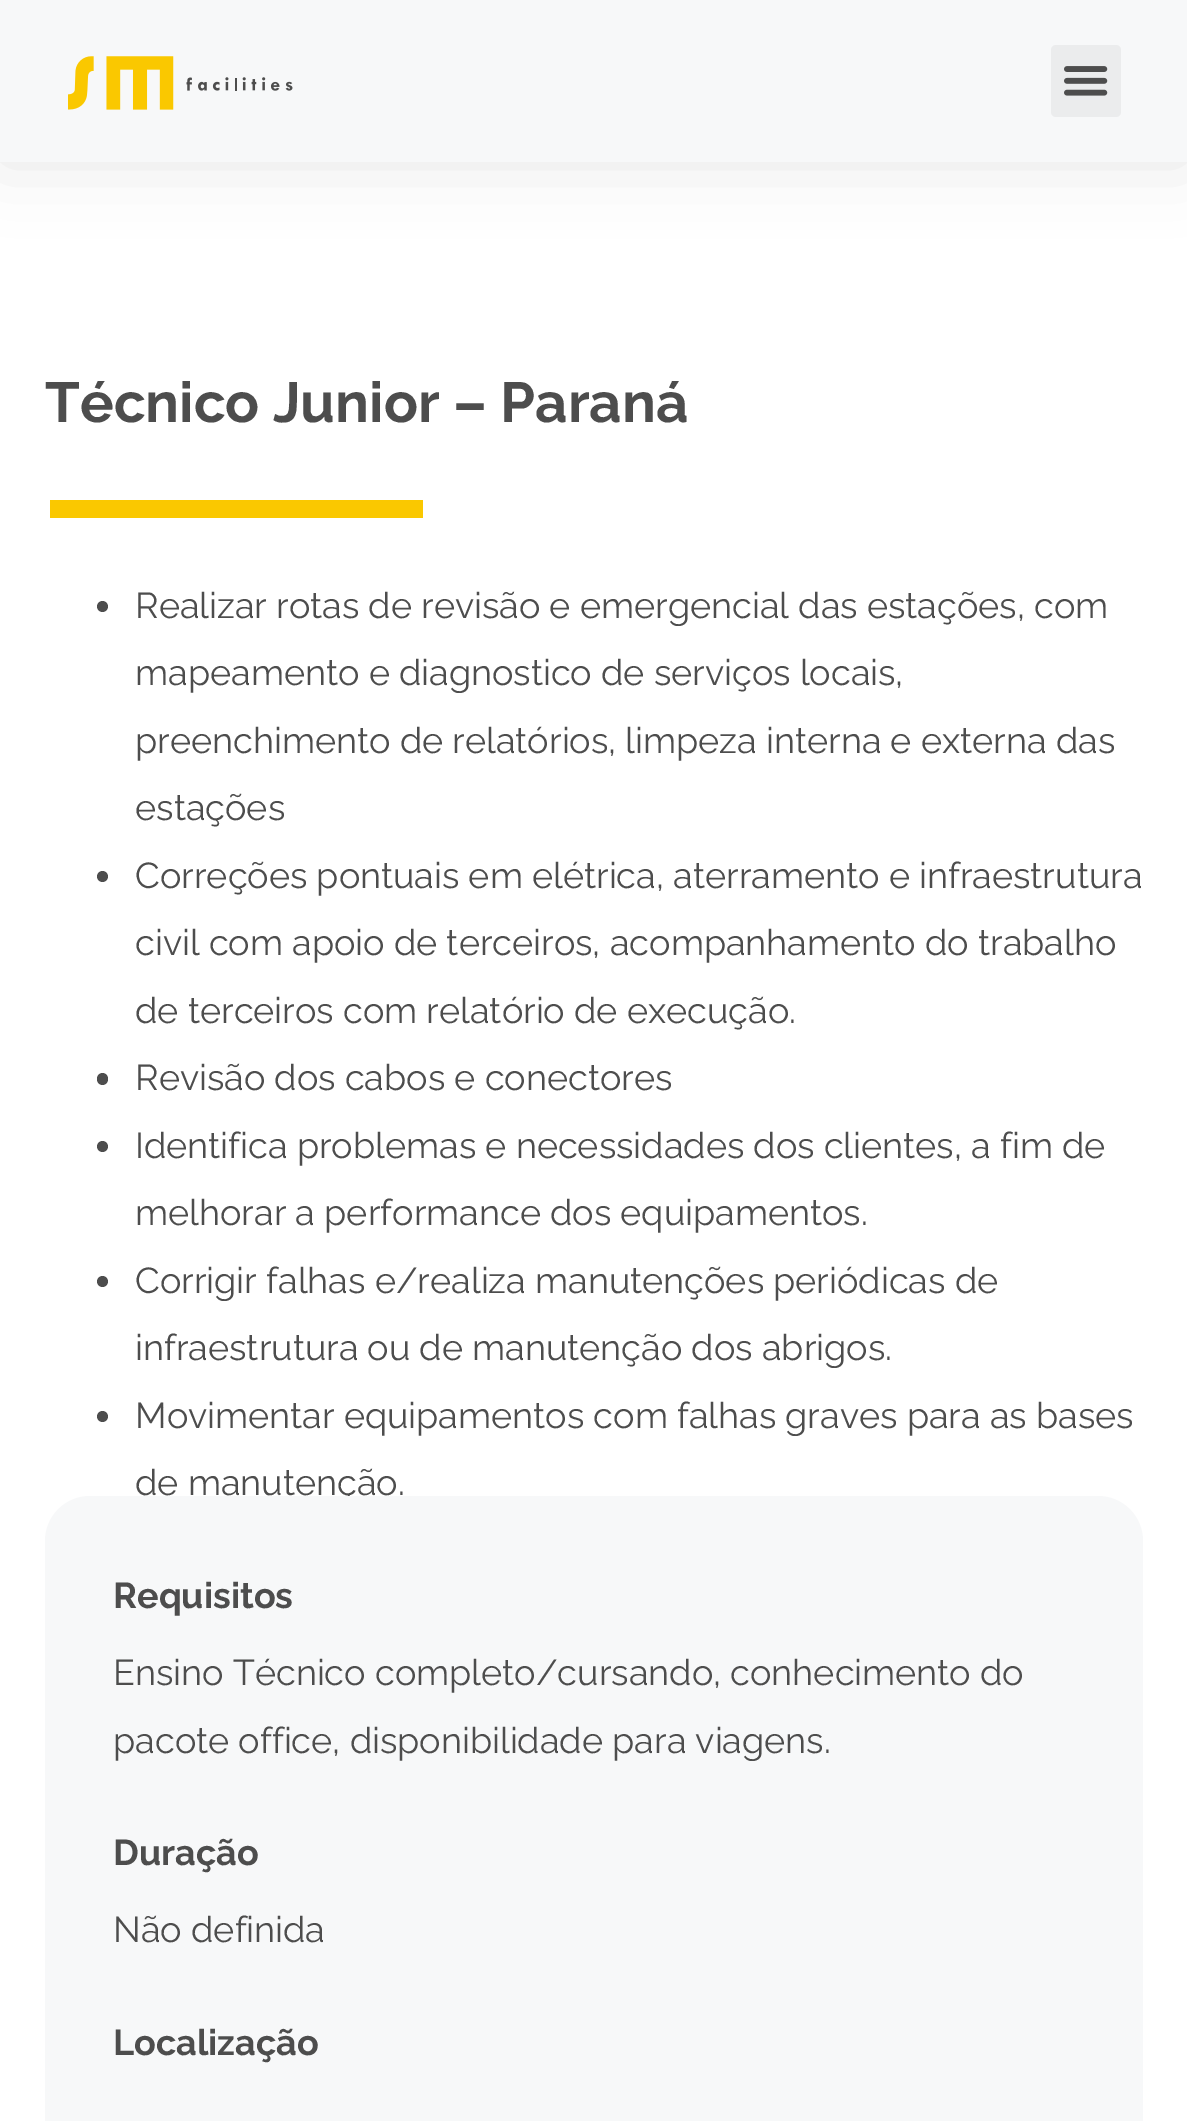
%!PS-Adobe-3.0
%%BoundingBox: 0 0 1187 2121
%%LanguageLevel: 3
%%Pages: 1
%%EndComments
%%BeginProlog
/setalpha { dup .setfillconstantalpha .setstrokeconstantalpha } def
/rrect { 5 dict begin { /r /h /w /y /x } { exch def } forall
  x r add y moveto x w add y 2 copy h add r arct x w add y h add x 1 index r arct
  x y h add x y r arct x y 2 copy exch w add exch r arct closepath end } def
/softshadow { 12 dict begin { /a /b /q /h /w /y /x } { exch def } forall gsave /was 0 def
  9 -2 -9 { dup b mul 4 div /e exch def 1 sub .425 mul 2.718 exch exp 1 add a .99 .min exch div /now exch def
    1 1 now sub 1 was sub div sub setalpha /was now def
    w h .min e 2 mul add 0 gt { x e sub y e sub w e 2 mul add h e 2 mul add
      q e add b .6 mul add w h .min 2 div e add .min 0 .max rrect fill } if } for grestore end } def
/drawimage { 5 dict begin { /h /w /y /x /name } { exch def } forall
  gsave x y translate w h scale
  w h 8 [w 0 0 h 0 0] name (r) file false 3 colorimage grestore end } def
%%EndProlog
%%BeginSetup
<< /PageSize [1187 2121] /PageUsesTransparency true >> setpagedevice
%%EndSetup
%%Page: 1 1
0 .pushpdf14devicefilter
0 2121 translate 1 -1 scale
4 setmiterlimit
1 setgray
0 0 1187 2121 rectfill
0 setgray
0 0 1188 162 0 34 0.1 softshadow
0.969 0.973 0.976 setrgbcolor
0 0 1187 162 rectfill
(images/1.raw) 68 56 225 54 drawimage
0.922 0.925 0.929 setrgbcolor
1051 45 70 72 5 rrect fill
(images/2.raw) 1064 66 44 30 drawimage
0.98 0.784 0 setrgbcolor
50 500 373 18 rectfill
0.302 setgray
newpath 102.5 606.5 5.5 0 360 arc closepath fill
newpath 102.5 876.5 5.5 0 360 arc closepath fill
97 1073 11 12 5.5 rrect fill
newpath 102.5 1146.5 5.5 0 360 arc closepath fill
newpath 102.5 1281.5 5.5 0 360 arc closepath fill
newpath 102.5 1416.5 5.5 0 360 arc closepath fill
/Raleway-Bold [56.25 0 0 -56.25 0 0] selectfont
45 422 moveto (Técnico Junior – Paraná) show
/Raleway-Regular [36 0 0 -36 0 0] selectfont
135 618 moveto (Realizar rotas de revisão e emergencial das estações, com) show
135 685 moveto (mapeamento e diagnostico de serviços locais,) show
135 753 moveto (preenchimento de relatórios, limpeza interna e externa das) show
135 820 moveto (estações) show
135 888 moveto (Correções pontuais em elétrica, aterramento e infraestrutura) show
135 955 moveto (civil com apoio de terceiros, acompanhamento do trabalho) show
135 1023 moveto (de terceiros com relatório de execução.) show
135 1090 moveto (Revisão dos cabos e conectores) show
135 1158 moveto (Identifica problemas e necessidades dos clientes, a fim de) show
135 1225 moveto (melhorar a performance dos equipamentos.) show
135 1293 moveto (Corrigir falhas e/realiza manutenções periódicas de) show
135 1360 moveto (infraestrutura ou de manutenção dos abrigos.) show
135 1428 moveto (Movimentar equipamentos com falhas graves para as bases) show
135 1495 moveto (de manutenção.) show
0.969 0.973 0.976 setrgbcolor
45 1496 1098 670 45 rrect fill
/Raleway-Bold [36 0 0 -36 0 0] selectfont
0.302 setgray
113 1608 moveto (Requisitos) show
/Raleway-Regular [36 0 0 -36 0 0] selectfont
113 1685 moveto (Ensino Técnico completo/cursando, conhecimento do) show
113 1753 moveto (pacote office, disponibilidade para viagens.) show
/Raleway-Bold [36 0 0 -36 0 0] selectfont
113 1865 moveto (Duração) show
/Raleway-Regular [36 0 0 -36 0 0] selectfont
113 1942 moveto (Não definida) show
/Raleway-Bold [36 0 0 -36 0 0] selectfont
113 2055 moveto (Localização) show
.poppdf14devicefilter showpage
%%EOF
